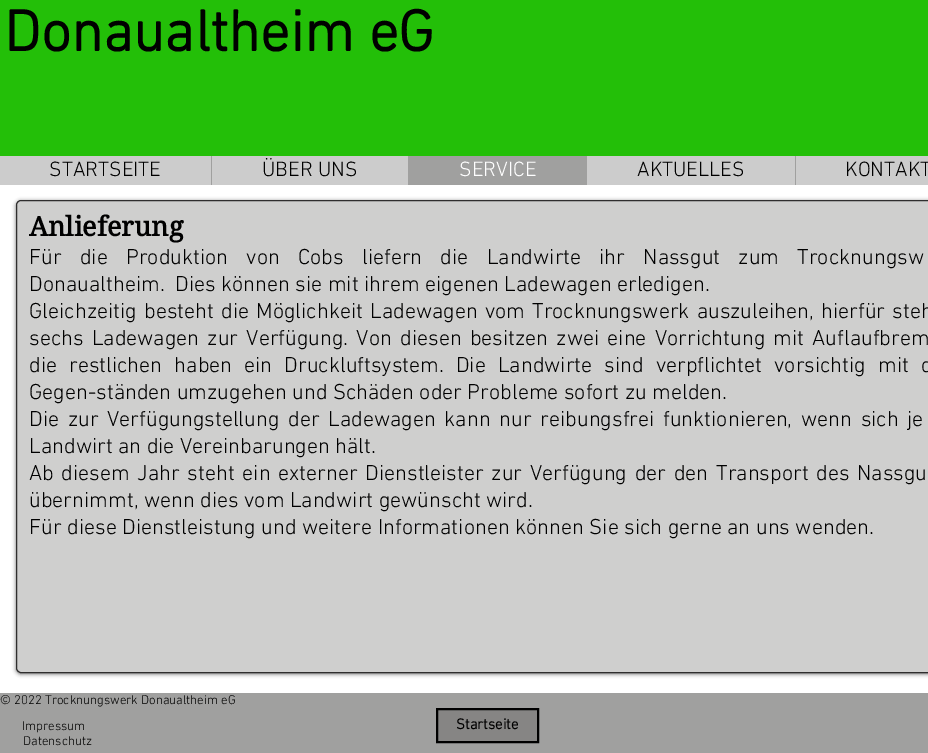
%!PS-Adobe-3.0
%%BoundingBox: 0 0 928 753
%%LanguageLevel: 3
%%Pages: 1
%%EndComments
%%BeginProlog
/setalpha { dup .setfillconstantalpha .setstrokeconstantalpha } def
/rrect { 5 dict begin { /r /h /w /y /x } { exch def } forall
  x r add y moveto x w add y 2 copy h add r arct x w add y h add x 1 index r arct
  x y h add x y r arct x y 2 copy exch w add exch r arct closepath end } def
/softshadow { 12 dict begin { /a /b /q /h /w /y /x } { exch def } forall gsave /was 0 def
  9 -2 -9 { dup b mul 4 div /e exch def 1 sub .425 mul 2.718 exch exp 1 add a .99 .min exch div /now exch def
    1 1 now sub 1 was sub div sub setalpha /was now def
    w h .min e 2 mul add 0 gt { x e sub y e sub w e 2 mul add h e 2 mul add
      q e add b .6 mul add w h .min 2 div e add .min 0 .max rrect fill } if } for grestore end } def
%%EndProlog
%%BeginSetup
<< /PageSize [928 753] /PageUsesTransparency true >> setpagedevice
%%EndSetup
%%Page: 1 1
0 .pushpdf14devicefilter
0 753 translate 1 -1 scale
4 setmiterlimit
0.137 0.749 0.031 setrgbcolor
0 0 928 753 rectfill
0.8 setgray
0 156 928 29 rectfill
0.627 0.627 0.624 setrgbcolor
211 156 1 29 rectfill
408 156 179 29 rectfill
795 156 1 29 rectfill
1 setgray
0 185 928 508 rectfill
gsave
newpath 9 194 moveto 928 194 lineto 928 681 lineto 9 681 lineto closepath 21 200 moveto 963 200 lineto 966 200 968 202 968 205 curveto 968 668 lineto 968 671 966 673 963 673 curveto 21 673 lineto 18 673 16 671 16 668 curveto 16 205 lineto 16 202 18 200 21 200 curveto closepath eoclip newpath
0 setgray
16 201 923 473 5 2 0.6 softshadow
grestore
0.51 setalpha
0.627 0.627 0.624 setrgbcolor
16.5 200.5 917 472 4.5 rrect fill
1 setalpha
0.184 0.18 0.18 setrgbcolor
16.5 200.5 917 472 4.5 rrect stroke
0.627 0.627 0.624 setrgbcolor
0 693 928 60 rectfill
0.525 0.522 0.518 setrgbcolor
newpath 437 709 moveto 538 709 lineto 538 742 lineto 437 742 lineto closepath gsave fill grestore
0 setgray
2 setlinewidth
stroke
/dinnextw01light-Bold [59 0 0 -59 0 0] selectfont
4 51 moveto (Donaualtheim eG) show
/dinnextw01light-Light [21 0 0 -21 0 0] selectfont
49 176 moveto (STARTSEITE) show
262 176 moveto (ÜBER UNS) show
1 setgray
459 176 moveto (SERVICE) show
0 setgray
637 176 moveto (AKTUELLES) show
845 176 moveto (KONTAKT) show
/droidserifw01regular-Bold [27 0 0 -27 0 0] selectfont
29 236 moveto (Anlieferung) show
/dinnextw01light-Light [22 0 0 -22 0 0] selectfont
29 264 moveto 12.75 0 32 (Für die Produktion von Cobs liefern die Landwirte ihr Nassgut zum Trocknungsw) widthshow
29 291 moveto (Donaualtheim.  Dies können sie mit ihrem eigenen Ladewagen erledigen.) show
29 318 moveto 1.75 0 32 (Gleichzeitig besteht die Möglichkeit Ladewagen vom Trocknungswerk auszuleihen, hierfür steh) widthshow
29 345 moveto 2.75 0 32 (sechs Ladewagen zur Verfügung. Von diesen besitzen zwei eine Vorrichtung mit Auflaufbrem) widthshow
29 372 moveto 6.6 0 32 (die restlichen haben ein Druckluftsystem. Die Landwirte sind verpflichtet vorsichtig mit d) widthshow
29 399 moveto (Gegen-ständen umzugehen und Schäden oder Probleme sofort zu melden.) show
29 426 moveto 3.25 0 32 (Die zur Verfügungstellung der Ladewagen kann nur reibungsfrei funktionieren, wenn sich je) widthshow
29 453 moveto (Landwirt an die Vereinbarungen hält.) show
29 480 moveto 2.25 0 32 (Ab diesem Jahr steht ein externer Dienstleister zur Verfügung der den Transport des Nassgu) widthshow
29 507 moveto (übernimmt, wenn dies vom Landwirt gewünscht wird.) show
29 534 moveto (Für diese Dienstleistung und weitere Informationen können Sie sich gerne an uns wenden.) show
/dinnextw01light-Light [13 0 0 -13 0 0] selectfont
0 704 moveto (© 2022 Trocknungswerk Donaualtheim eG) show
22 730 moveto (Impressum) show
/dinnextw01light-Bold [15 0 0 -15 0 0] selectfont
456 729 moveto (Startseite) show
/dinnextw01light-Light [13 0 0 -13 0 0] selectfont
23 745 moveto (Datenschutz) show
.poppdf14devicefilter showpage
%%EOF
